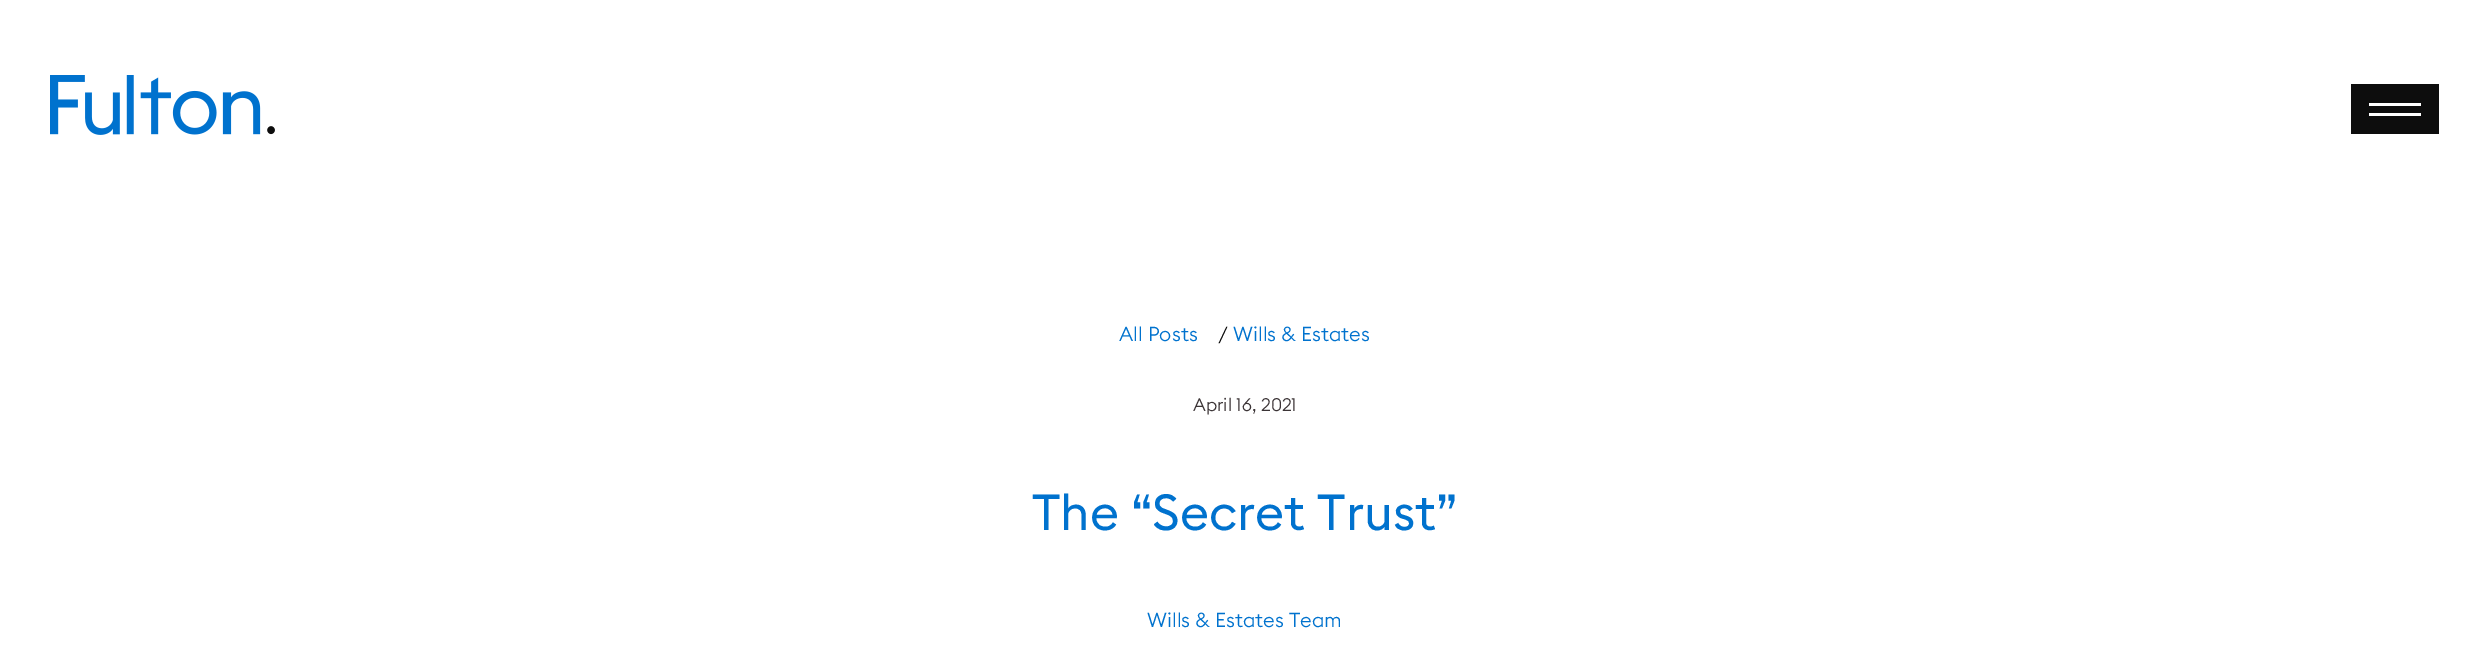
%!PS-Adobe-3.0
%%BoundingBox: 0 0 2488 654
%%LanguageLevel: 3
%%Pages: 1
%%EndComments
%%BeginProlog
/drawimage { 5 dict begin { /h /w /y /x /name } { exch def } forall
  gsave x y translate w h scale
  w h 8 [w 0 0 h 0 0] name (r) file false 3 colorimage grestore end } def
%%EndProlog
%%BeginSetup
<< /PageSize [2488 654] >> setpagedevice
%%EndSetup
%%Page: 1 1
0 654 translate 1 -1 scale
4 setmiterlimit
1 setgray
0 0 2488 654 rectfill
(images/1.raw) 50 75 225 60 drawimage
0.051 setgray
2351 84 88 50 rectfill
1 setgray
2369 103 52 3 rectfill
2369 113 52 3 rectfill
/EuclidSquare-Light [20 0 0 -20 0 0] selectfont
0 0.447 0.808 setrgbcolor
1119 341 moveto (All Posts) show
0.051 setgray
1218 341 moveto (/) show
0 0.447 0.808 setrgbcolor
1233 341 moveto (Wills & Estates) show
/EuclidSquare-Light [18 0 0 -18 0 0] selectfont
0.231 0.204 0.212 setrgbcolor
1193 411 moveto (April 16, 2021) show
/EuclidSquare-Regular [50 0 0 -50 0 0] selectfont
0 0.447 0.808 setrgbcolor
1032 530 moveto (The “Secret Trust”) show
/EuclidSquare-Light [20 0 0 -20 0 0] selectfont
1147 627 moveto (Wills & Estates Team) show
showpage
%%EOF
